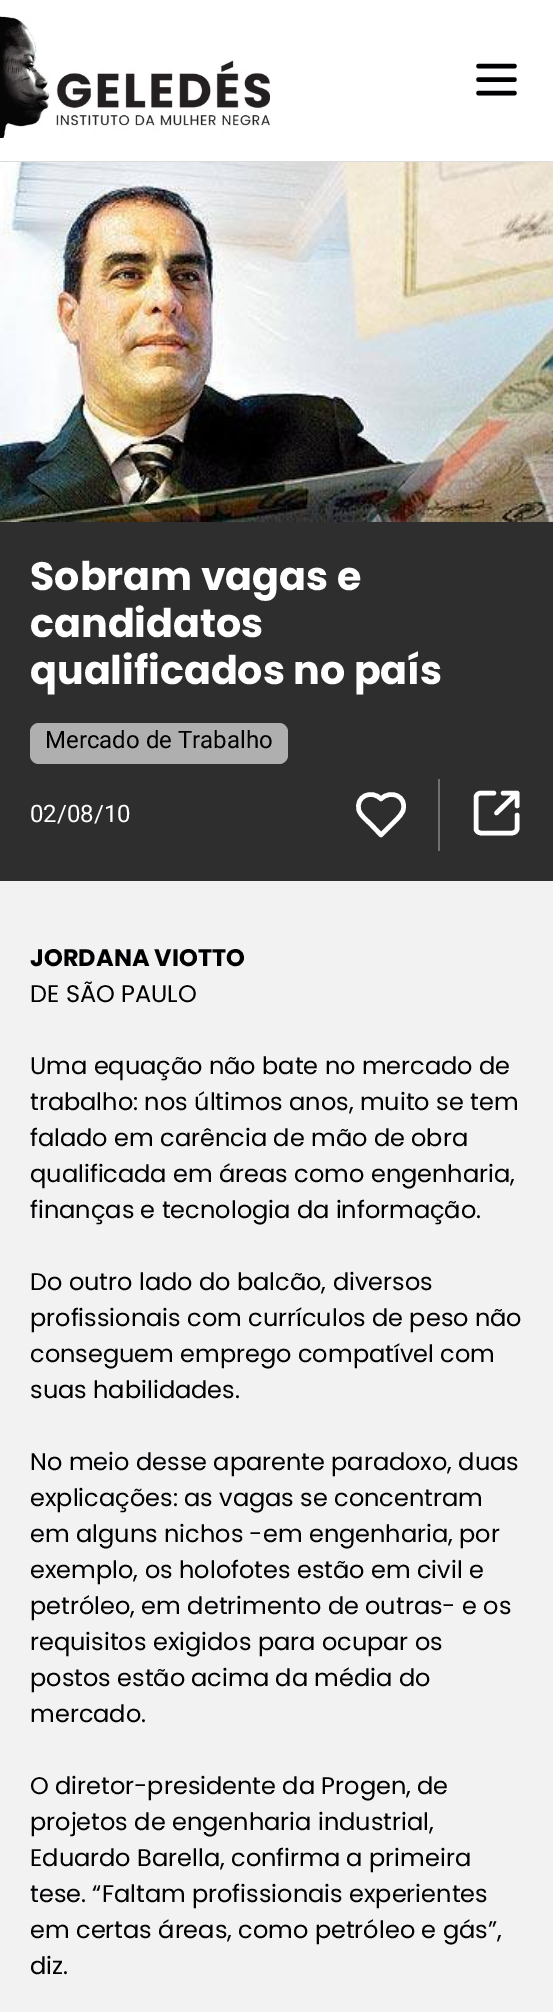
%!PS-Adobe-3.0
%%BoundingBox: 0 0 553 2012
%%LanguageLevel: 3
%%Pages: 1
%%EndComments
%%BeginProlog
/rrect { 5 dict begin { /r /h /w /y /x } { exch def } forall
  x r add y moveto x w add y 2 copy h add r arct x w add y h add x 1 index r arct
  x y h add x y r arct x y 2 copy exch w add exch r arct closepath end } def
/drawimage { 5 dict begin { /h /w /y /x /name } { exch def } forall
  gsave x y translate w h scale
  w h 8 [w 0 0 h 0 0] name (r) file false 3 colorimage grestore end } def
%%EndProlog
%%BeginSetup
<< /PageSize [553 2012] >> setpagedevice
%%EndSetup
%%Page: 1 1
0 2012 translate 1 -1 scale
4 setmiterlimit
0.949 setgray
0 0 553 2012 rectfill
1 setgray
0 0 553 161 rectfill
0.859 setgray
0 161 553 1 rectfill
(images/1.raw) 0 15 270 123 drawimage
0 0 0.012 setrgbcolor
4.5 setlinewidth
1 setlinecap
1 setlinejoin
newpath 478.5 79.5 moveto 514.5 79.5 lineto 478.5 66 moveto 514.5 66 lineto 478.5 93 moveto 514.5 93 lineto stroke
(images/2.raw) 0 162 553 360 drawimage
0.18 setgray
0 522 553 359 rectfill
0.686 setgray
30 723 258 41 9 rrect fill
1 setgray
newpath 397 819 moveto 399.5 816.5 402 813.5 403 810.5 curveto 407.5 796.5 390.5 789 381 799 curveto 371.5 789 355 796.5 359 810.5 curveto 361 816 366.5 820 370.5 824 curveto 381 835 lineto closepath stroke
0.439 0.439 0.447 setrgbcolor
438 779 2 72 rectfill
1 setgray
newpath 517 815 moveto 517 829 lineto 517 831 514.5 833 512 833 curveto 481 833 lineto 478.5 833 476 831 476 829 curveto 476 797 lineto 476 795 478.5 793 481 793 curveto 494 793 lineto 517 793 moveto 496.5 813 lineto 503 793 moveto 517 793 lineto 517 806 lineto stroke
/Poppins-Bold [39.6 0 0 -39.6 0 0] selectfont
30 590 moveto (Sobram vagas e) show
30 637 moveto (candidatos) show
30 684 moveto (qualificados no país) show
/Roboto-Regular [24 0 0 -24 0 0] selectfont
0 0 0.012 setrgbcolor
45 748 moveto (Mercado de Trabalho) show
1 setgray
30 822 moveto (02/08/10) show
/Poppins-Bold [24 0 0 -24 0 0] selectfont
0 0 0.012 setrgbcolor
30 966 moveto (JORDANA VIOTTO) show
/Poppins-Regular [24 0 0 -24 0 0] selectfont
30 1002 moveto (DE SÃO PAULO) show
30 1074 moveto (Uma equação não bate no mercado de) show
30 1110 moveto (trabalho: nos últimos anos, muito se tem) show
30 1146 moveto (falado em carência de mão de obra) show
30 1182 moveto (qualificada em áreas como engenharia,) show
30 1218 moveto (finanças e tecnologia da informação.) show
30 1290 moveto (Do outro lado do balcão, diversos) show
30 1326 moveto (profissionais com currículos de peso não) show
30 1362 moveto (conseguem emprego compatível com) show
30 1398 moveto (suas habilidades.) show
30 1470 moveto (No meio desse aparente paradoxo, duas) show
30 1506 moveto (explicações: as vagas se concentram) show
30 1542 moveto (em alguns nichos -em engenharia, por) show
30 1578 moveto (exemplo, os holofotes estão em civil e) show
30 1614 moveto (petróleo, em detrimento de outras- e os) show
30 1650 moveto (requisitos exigidos para ocupar os) show
30 1686 moveto (postos estão acima da média do) show
30 1722 moveto (mercado.) show
30 1794 moveto (O diretor-presidente da Progen, de) show
30 1830 moveto (projetos de engenharia industrial,) show
30 1866 moveto (Eduardo Barella, confirma a primeira) show
30 1902 moveto (tese. “Faltam profissionais experientes) show
30 1938 moveto (em certas áreas, como petróleo e gás”,) show
30 1974 moveto (diz.) show
showpage
%%EOF
